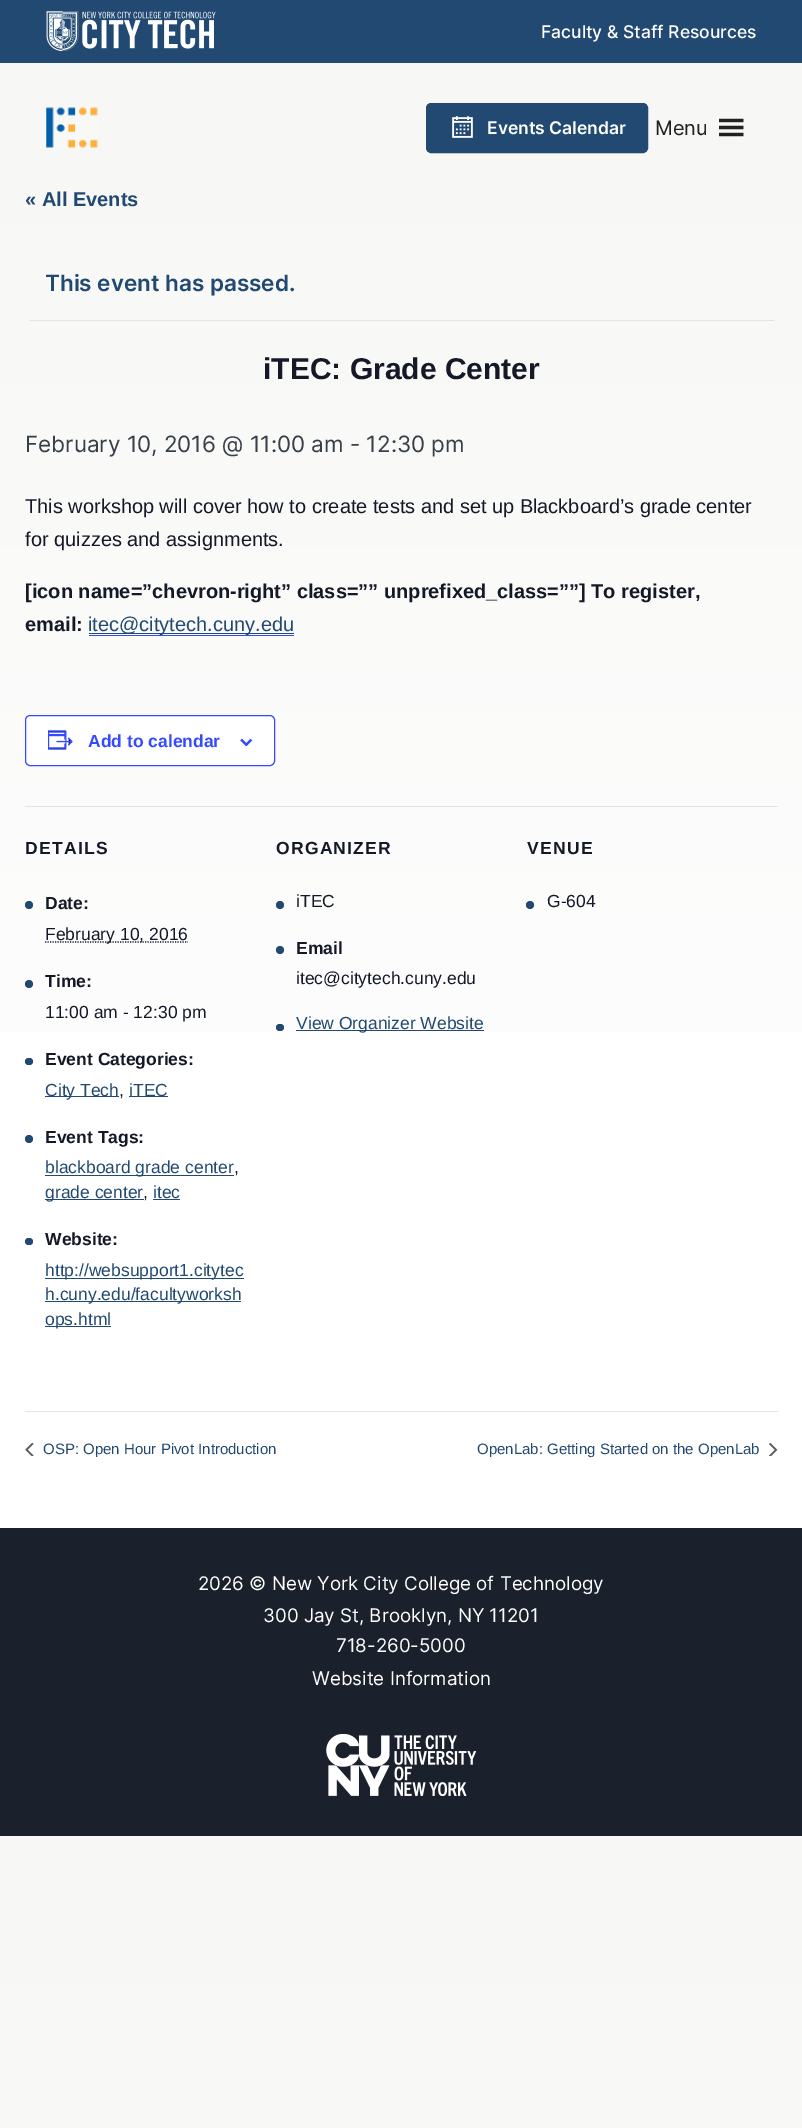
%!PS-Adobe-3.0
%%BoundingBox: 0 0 802 2128
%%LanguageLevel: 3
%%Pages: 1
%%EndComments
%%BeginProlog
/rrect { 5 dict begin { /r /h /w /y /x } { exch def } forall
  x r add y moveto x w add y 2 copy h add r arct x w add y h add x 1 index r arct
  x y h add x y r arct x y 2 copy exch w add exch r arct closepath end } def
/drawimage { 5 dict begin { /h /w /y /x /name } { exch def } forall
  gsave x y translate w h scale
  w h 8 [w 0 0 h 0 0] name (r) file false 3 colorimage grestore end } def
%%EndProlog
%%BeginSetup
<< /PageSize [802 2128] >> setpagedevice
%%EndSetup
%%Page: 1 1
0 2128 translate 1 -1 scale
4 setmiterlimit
1 setgray
0 0 802 2128 rectfill
gsave newpath 0 63 moveto 802 63 lineto 802 1033 lineto 0 1033 lineto closepath clip newpath
<< /ShadingType 2 /ColorSpace /DeviceRGB /Coords [401 0 401 1836] /Extend [true true] /Function << /FunctionType 3 /Domain [0 1] /Functions [<< /FunctionType 2 /Domain [0 1] /C0 [0.969 0.969 0.961] /C1 [1 1 1] /N 1 >> << /FunctionType 2 /Domain [0 1] /C0 [1 1 1] /C1 [1 1 1] /N 1 >>] /Bounds [0.75] /Encode [0 1 0 1] >> >> shfill grestore
gsave newpath 0 1836 moveto 802 1836 lineto 802 2128 lineto 0 2128 lineto closepath clip newpath
<< /ShadingType 2 /ColorSpace /DeviceRGB /Coords [401 1836 401 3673] /Extend [true true] /Function << /FunctionType 3 /Domain [0 1] /Functions [<< /FunctionType 2 /Domain [0 1] /C0 [0.969 0.969 0.961] /C1 [1 1 1] /N 1 >> << /FunctionType 2 /Domain [0 1] /C0 [1 1 1] /C1 [1 1 1] /N 1 >>] /Bounds [0.75] /Encode [0 1 0 1] >> >> shfill grestore
0.129 0.286 0.443 setrgbcolor
0 0 802 63 rectfill
(images/1.raw) 46 11 170 40 drawimage
(images/2.raw) 46 107 52 41 drawimage
426.5 103.5 221 49 4.5 rrect gsave fill grestore
stroke
(images/3.raw) 452 116 21 22 drawimage
(images/4.raw) 719 118 25 19 drawimage
0.894 setgray
29 320 745 1 rectfill
0.2 0.29 1 setrgbcolor
89 635 205 1 rectfill
0.129 0.286 0.443 setrgbcolor
89 633 205 1 rectfill
1 setgray
25.5 715.5 249 50 4.5 rrect gsave fill grestore
0.2 0.29 1 setrgbcolor
stroke
(images/5.raw) 48 730 25 20 drawimage
(images/6.raw) 240 739 13 7 drawimage
0.894 setgray
25 806 753 1 rectfill
0.129 0.286 0.443 setrgbcolor
newpath 29 905 4 0 360 arc closepath fill
0.078 0.094 0.153 setrgbcolor
1.2 setlinewidth
[1.25 1.25] 0 setdash
newpath 45 942 moveto 188 942 lineto stroke
0.129 0.286 0.443 setrgbcolor
newpath 29 984 4 0 360 arc closepath fill
25 1058 8 7 3.5 rrect fill
45 1096 74 1 rectfill
129 1096 39 1 rectfill
newpath 29 1139 4 0 360 arc closepath fill
45 1175 189 1 rectfill
45 1199 99 1 rectfill
153 1199 27 1 rectfill
25 1238 8 7 3.5 rrect fill
45 1278 199 1 rectfill
45 1301 196 1 rectfill
45 1326 66 1 rectfill
newpath 280 905 4 0 360 arc closepath fill
newpath 280 950 4 0 360 arc closepath fill
276 1024 8 7 3.5 rrect fill
296 1030 188 1 rectfill
newpath 530 905 4 0 360 arc closepath fill
0.898 setgray
25 1411 753 1 rectfill
(images/7.raw) 25 1443 9 13 drawimage
(images/8.raw) 769 1443 9 13 drawimage
0.102 0.125 0.173 setrgbcolor
0 1528 802 308 rectfill
(images/9.raw) 326 1734 150 62 drawimage
/Inter-Medium [17.5 0 0 -17.5 0 0] selectfont
1 setgray
541 38 moveto (Faculty & Staff Resources) show
/Inter-SemiBold [17.5 0 0 -17.5 0 0] selectfont
487 134 moveto (Events Calendar) show
/Inter-Regular [20 0 0 -20 0 0] selectfont
0.133 setgray
655 135 moveto (Menu) show
/LiberationSans-Bold [20 0 0 -20 0 0] selectfont
0.129 0.286 0.443 setrgbcolor
25 206 moveto (« All Events) show
/Inter-SemiBold [22.5 0 0 -22.5 0 0] selectfont
45 291 moveto (This event has passed.) show
/LiberationSans-Bold [30 0 0 -30 0 0] selectfont
0.078 0.094 0.153 setrgbcolor
263 379 moveto (iTEC: Grade Center) show
/Inter-Regular [22.5 0 0 -22.5 0 0] selectfont
0.216 0.251 0.286 setrgbcolor
25 452 moveto (February 10, 2016 @ 11:00 am - 12:30 pm) show
/LiberationSans-Regular [20 0 0 -20 0 0] selectfont
0.078 0.094 0.153 setrgbcolor
25 513 moveto (This workshop will cover how to create tests and set up Blackboard’s grade center) show
25 546 moveto (for quizzes and assignments.) show
/LiberationSans-Bold [20 0 0 -20 0 0] selectfont
25 598 moveto ([icon name=”chevron-right” class=”” unprefixed_class=””] To register,) show
25 631 moveto (email:) show
/LiberationSans-Regular [20 0 0 -20 0 0] selectfont
0.129 0.286 0.443 setrgbcolor
88 631 moveto (itec@citytech.cuny.edu) show
/LiberationSans-Bold [17.5 0 0 -17.5 0 0] selectfont
0.2 0.29 1 setrgbcolor
88 747 moveto (Add to calendar) show
0.078 0.094 0.153 setrgbcolor
25 854 moveto 1.25 0 (DETAILS) ashow
45 909 moveto (Date:) show
/LiberationSans-Regular [17.5 0 0 -17.5 0 0] selectfont
45 940 moveto (February 10, 2016) show
/LiberationSans-Bold [17.5 0 0 -17.5 0 0] selectfont
45 987 moveto (Time:) show
/LiberationSans-Regular [17.5 0 0 -17.5 0 0] selectfont
45 1018 moveto (11:00 am - 12:30 pm) show
/LiberationSans-Bold [17.5 0 0 -17.5 0 0] selectfont
45 1065 moveto (Event Categories:) show
/LiberationSans-Regular [17.5 0 0 -17.5 0 0] selectfont
0.129 0.286 0.443 setrgbcolor
45 1096 moveto (City Tech) show
0.078 0.094 0.153 setrgbcolor
119 1096 moveto (,) show
0.129 0.286 0.443 setrgbcolor
129 1096 moveto (iTEC) show
/LiberationSans-Bold [17.5 0 0 -17.5 0 0] selectfont
0.078 0.094 0.153 setrgbcolor
45 1143 moveto (Event Tags:) show
/LiberationSans-Regular [17.5 0 0 -17.5 0 0] selectfont
0.129 0.286 0.443 setrgbcolor
45 1173 moveto (blackboard grade center) show
0.078 0.094 0.153 setrgbcolor
234 1173 moveto (,) show
0.129 0.286 0.443 setrgbcolor
45 1198 moveto (grade center) show
0.078 0.094 0.153 setrgbcolor
143 1198 moveto (,) show
0.129 0.286 0.443 setrgbcolor
153 1198 moveto (itec) show
/LiberationSans-Bold [17.5 0 0 -17.5 0 0] selectfont
0.078 0.094 0.153 setrgbcolor
45 1245 moveto (Website:) show
/LiberationSans-Regular [17.5 0 0 -17.5 0 0] selectfont
0.129 0.286 0.443 setrgbcolor
45 1276 moveto (http://websupport1.citytec) show
45 1300 moveto (h.cuny.edu/facultyworksh) show
45 1325 moveto (ops.html) show
/LiberationSans-Bold [17.5 0 0 -17.5 0 0] selectfont
0.078 0.094 0.153 setrgbcolor
276 854 moveto 1.25 0 (ORGANIZER) ashow
/LiberationSans-Regular [17.5 0 0 -17.5 0 0] selectfont
296 907 moveto (iTEC) show
/LiberationSans-Bold [17.5 0 0 -17.5 0 0] selectfont
296 954 moveto (Email) show
/LiberationSans-Regular [17.5 0 0 -17.5 0 0] selectfont
296 984 moveto (itec@citytech.cuny.edu) show
0.129 0.286 0.443 setrgbcolor
296 1029 moveto (View Organizer Website) show
/LiberationSans-Bold [17.5 0 0 -17.5 0 0] selectfont
0.078 0.094 0.153 setrgbcolor
527 854 moveto 1.25 0 (VENUE) ashow
/LiberationSans-Regular [17.5 0 0 -17.5 0 0] selectfont
547 907 moveto (G-604) show
/LiberationSans-Regular [15 0 0 -15 0 0] selectfont
0.129 0.286 0.443 setrgbcolor
43 1454 moveto (OSP: Open Hour Pivot Introduction) show
477 1454 moveto (OpenLab: Getting Started on the OpenLab) show
/Inter-Regular [18.75 0 0 -18.75 0 0] selectfont
1 setgray
198 1590 moveto (2026 © New York City College of Technology) show
263 1622 moveto (300 Jay St, Brooklyn, NY 11201) show
336 1652 moveto (718-260-5000) show
312 1685 moveto (Website Information) show
showpage
%%EOF
